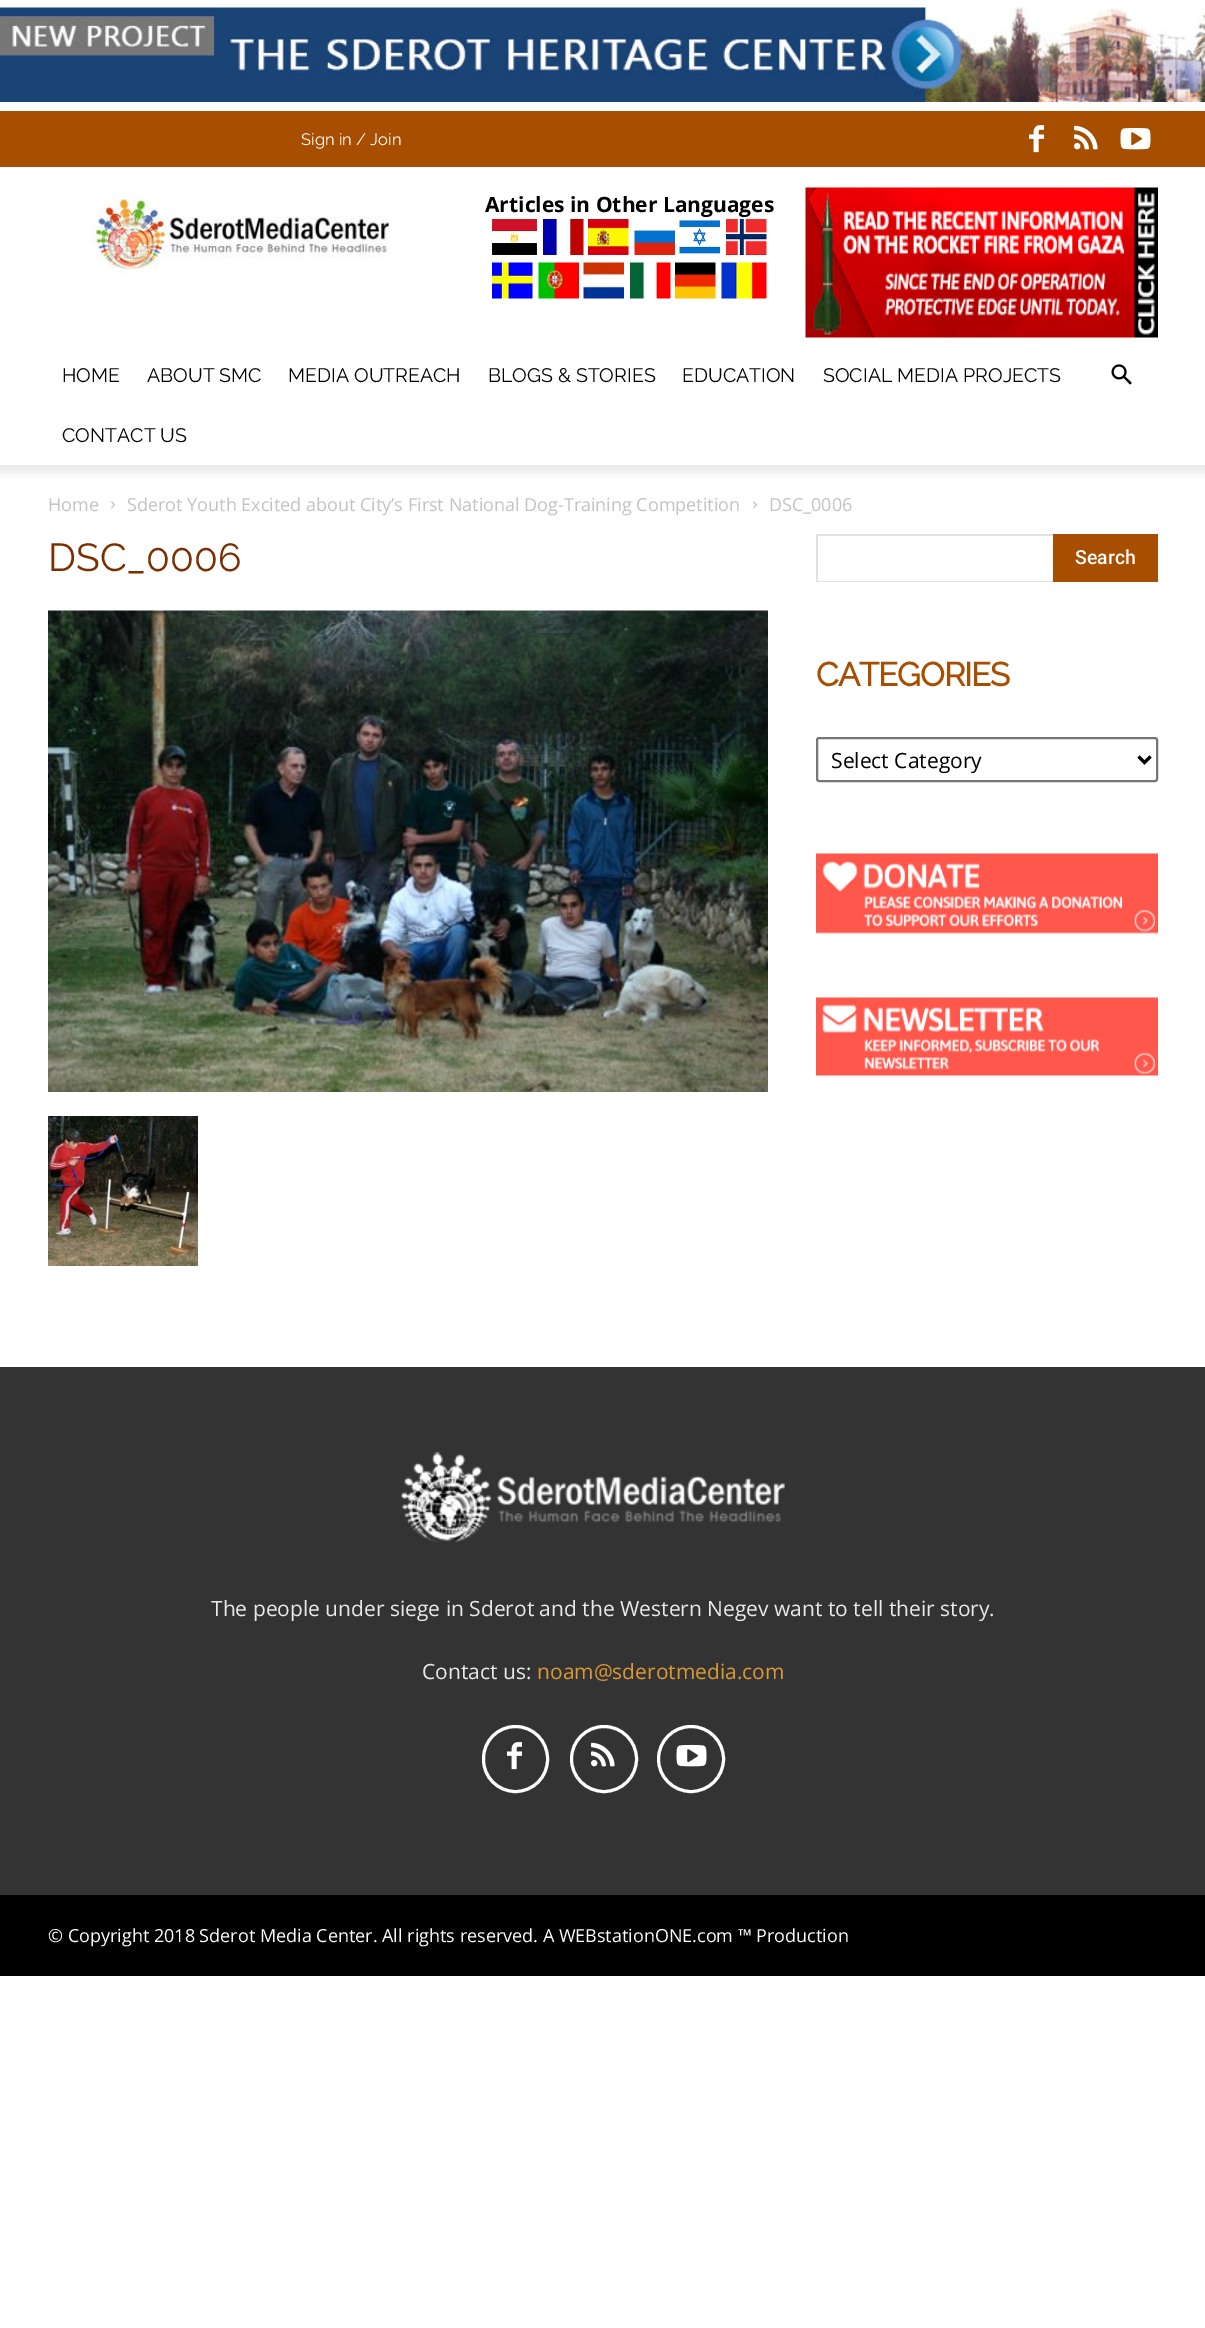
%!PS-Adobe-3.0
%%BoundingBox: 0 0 1205 2328
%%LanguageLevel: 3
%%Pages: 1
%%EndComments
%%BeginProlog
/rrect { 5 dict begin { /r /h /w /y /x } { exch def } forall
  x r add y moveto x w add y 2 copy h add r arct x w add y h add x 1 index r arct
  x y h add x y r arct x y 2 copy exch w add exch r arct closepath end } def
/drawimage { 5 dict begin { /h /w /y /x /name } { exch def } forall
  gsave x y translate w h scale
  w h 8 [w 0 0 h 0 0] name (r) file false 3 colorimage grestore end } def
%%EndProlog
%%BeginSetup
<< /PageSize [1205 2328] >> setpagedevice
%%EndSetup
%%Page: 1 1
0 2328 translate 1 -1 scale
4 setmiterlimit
1 setgray
0 0 1205 2328 rectfill
(images/1.raw) 0 7 1205 95 drawimage
0.659 0.306 0 setrgbcolor
0 111 1205 56 rectfill
(images/2.raw) 1029 125 15 28 drawimage
(images/3.raw) 1074 125 24 25 drawimage
(images/4.raw) 1120 127 31 23 drawimage
(images/5.raw) 90 199 300 76 drawimage
(images/6.raw) 492 219 45 36 drawimage
(images/7.raw) 543 219 41 36 drawimage
(images/8.raw) 588 219 41 36 drawimage
(images/9.raw) 634 227 41 28 drawimage
(images/10.raw) 679 220 41 34 drawimage
(images/11.raw) 726 219 41 36 drawimage
(images/12.raw) 492 262 41 37 drawimage
(images/13.raw) 538 262 41 37 drawimage
(images/14.raw) 583 262 41 37 drawimage
(images/15.raw) 630 262 41 37 drawimage
(images/16.raw) 675 262 41 37 drawimage
(images/17.raw) 721 262 46 37 drawimage
(images/18.raw) 805 187 353 151 drawimage
(images/19.raw) 1111 364 21 21 drawimage
(images/20.raw) 0 465 1205 13 drawimage
(images/21.raw) 111 501 4 8 drawimage
(images/21.raw) 753 501 4 8 drawimage
(images/22.raw) 48 610 720 482 drawimage
(images/23.raw) 48 1116 150 150 drawimage
0.882 setgray
816 534 237 2 rectfill
816 581 237 1 rectfill
816 534 2 48 rectfill
0.659 0.306 0 setrgbcolor
1053 534 105 48 rectfill
0.463 setgray
2 setlinewidth
817 738 340 43 2 rrect stroke
0 setgray
3 setlinewidth
newpath 1138.5 756.5 moveto 1144.5 762.5 lineto 1150.5 756.5 lineto stroke
(images/24.raw) 816 853 342 81 drawimage
(images/25.raw) 816 997 342 79 drawimage
0.2 setgray
0 1367 1205 528 rectfill
(images/26.raw) 400 1451 385 92 drawimage
(images/27.raw) 507 1742 15 28 drawimage
1 setgray
483.5 1726.5 64 65 32 rrect stroke
(images/28.raw) 591 1742 24 25 drawimage
newpath 604 1759 32.5 0 360 arc closepath stroke
(images/29.raw) 676 1744 31 23 drawimage
newpath 691 1759 32.5 0 360 arc closepath stroke
0 setgray
0 1895 1205 81 rectfill
/Raleway-Thin [16.5 0 0 -16.5 0 0] selectfont
1 setgray
301 145 moveto (Sign in / Join) show
/OpenSans-Bold [21 0 0 -21 0 0] selectfont
0 setgray
485 212 moveto (Articles in Other Languages) show
/Raleway-Thin [19.5 0 0 -19.5 0 0] selectfont
62 382 moveto (HOME) show
147 382 moveto (ABOUT SMC) show
288 382 moveto (MEDIA OUTREACH) show
488 382 moveto (BLOGS & STORIES) show
682 382 moveto (EDUCATION) show
823 382 moveto (SOCIAL MEDIA PROJECTS) show
62 442 moveto (CONTACT US) show
/OpenSans-Regular [18 0 0 -18 0 0] selectfont
0.765 setgray
48 511 moveto (Home) show
127 511 moveto (Sderot Youth Excited about City’s First National Dog-Training Competition) show
769 511 moveto (DSC_0006) show
/Raleway-Thin [39 0 0 -39 0 0] selectfont
0.482 0.18 0 setrgbcolor
48 571 moveto (DSC_0006) show
/Roboto-Medium [19.5 0 0 -19.5 0 0] selectfont
1 setgray
1075 564 moveto (Search) show
/Raleway-Bold [33 0 0 -33 0 0] selectfont
0.659 0.306 0 setrgbcolor
816 686 moveto -1 0 (CATEGORIES) ashow
/OpenSans-Regular [21 0 0 -21 0 0] selectfont
0 setgray
831 768 moveto (Select Category) show
0.918 setgray
211 1616 moveto (The people under siege in Sderot and the Western Negev want to tell their story.) show
422 1679 moveto (Contact us:) show
0.867 0.6 0.2 setrgbcolor
537 1679 moveto (noam@sderotmedia.com) show
/OpenSans-Regular [18 0 0 -18 0 0] selectfont
1 setgray
48 1942 moveto (© Copyright 2018 Sderot Media Center. All rights reserved. A WEBstationONE.com ™ Production) show
showpage
%%EOF
